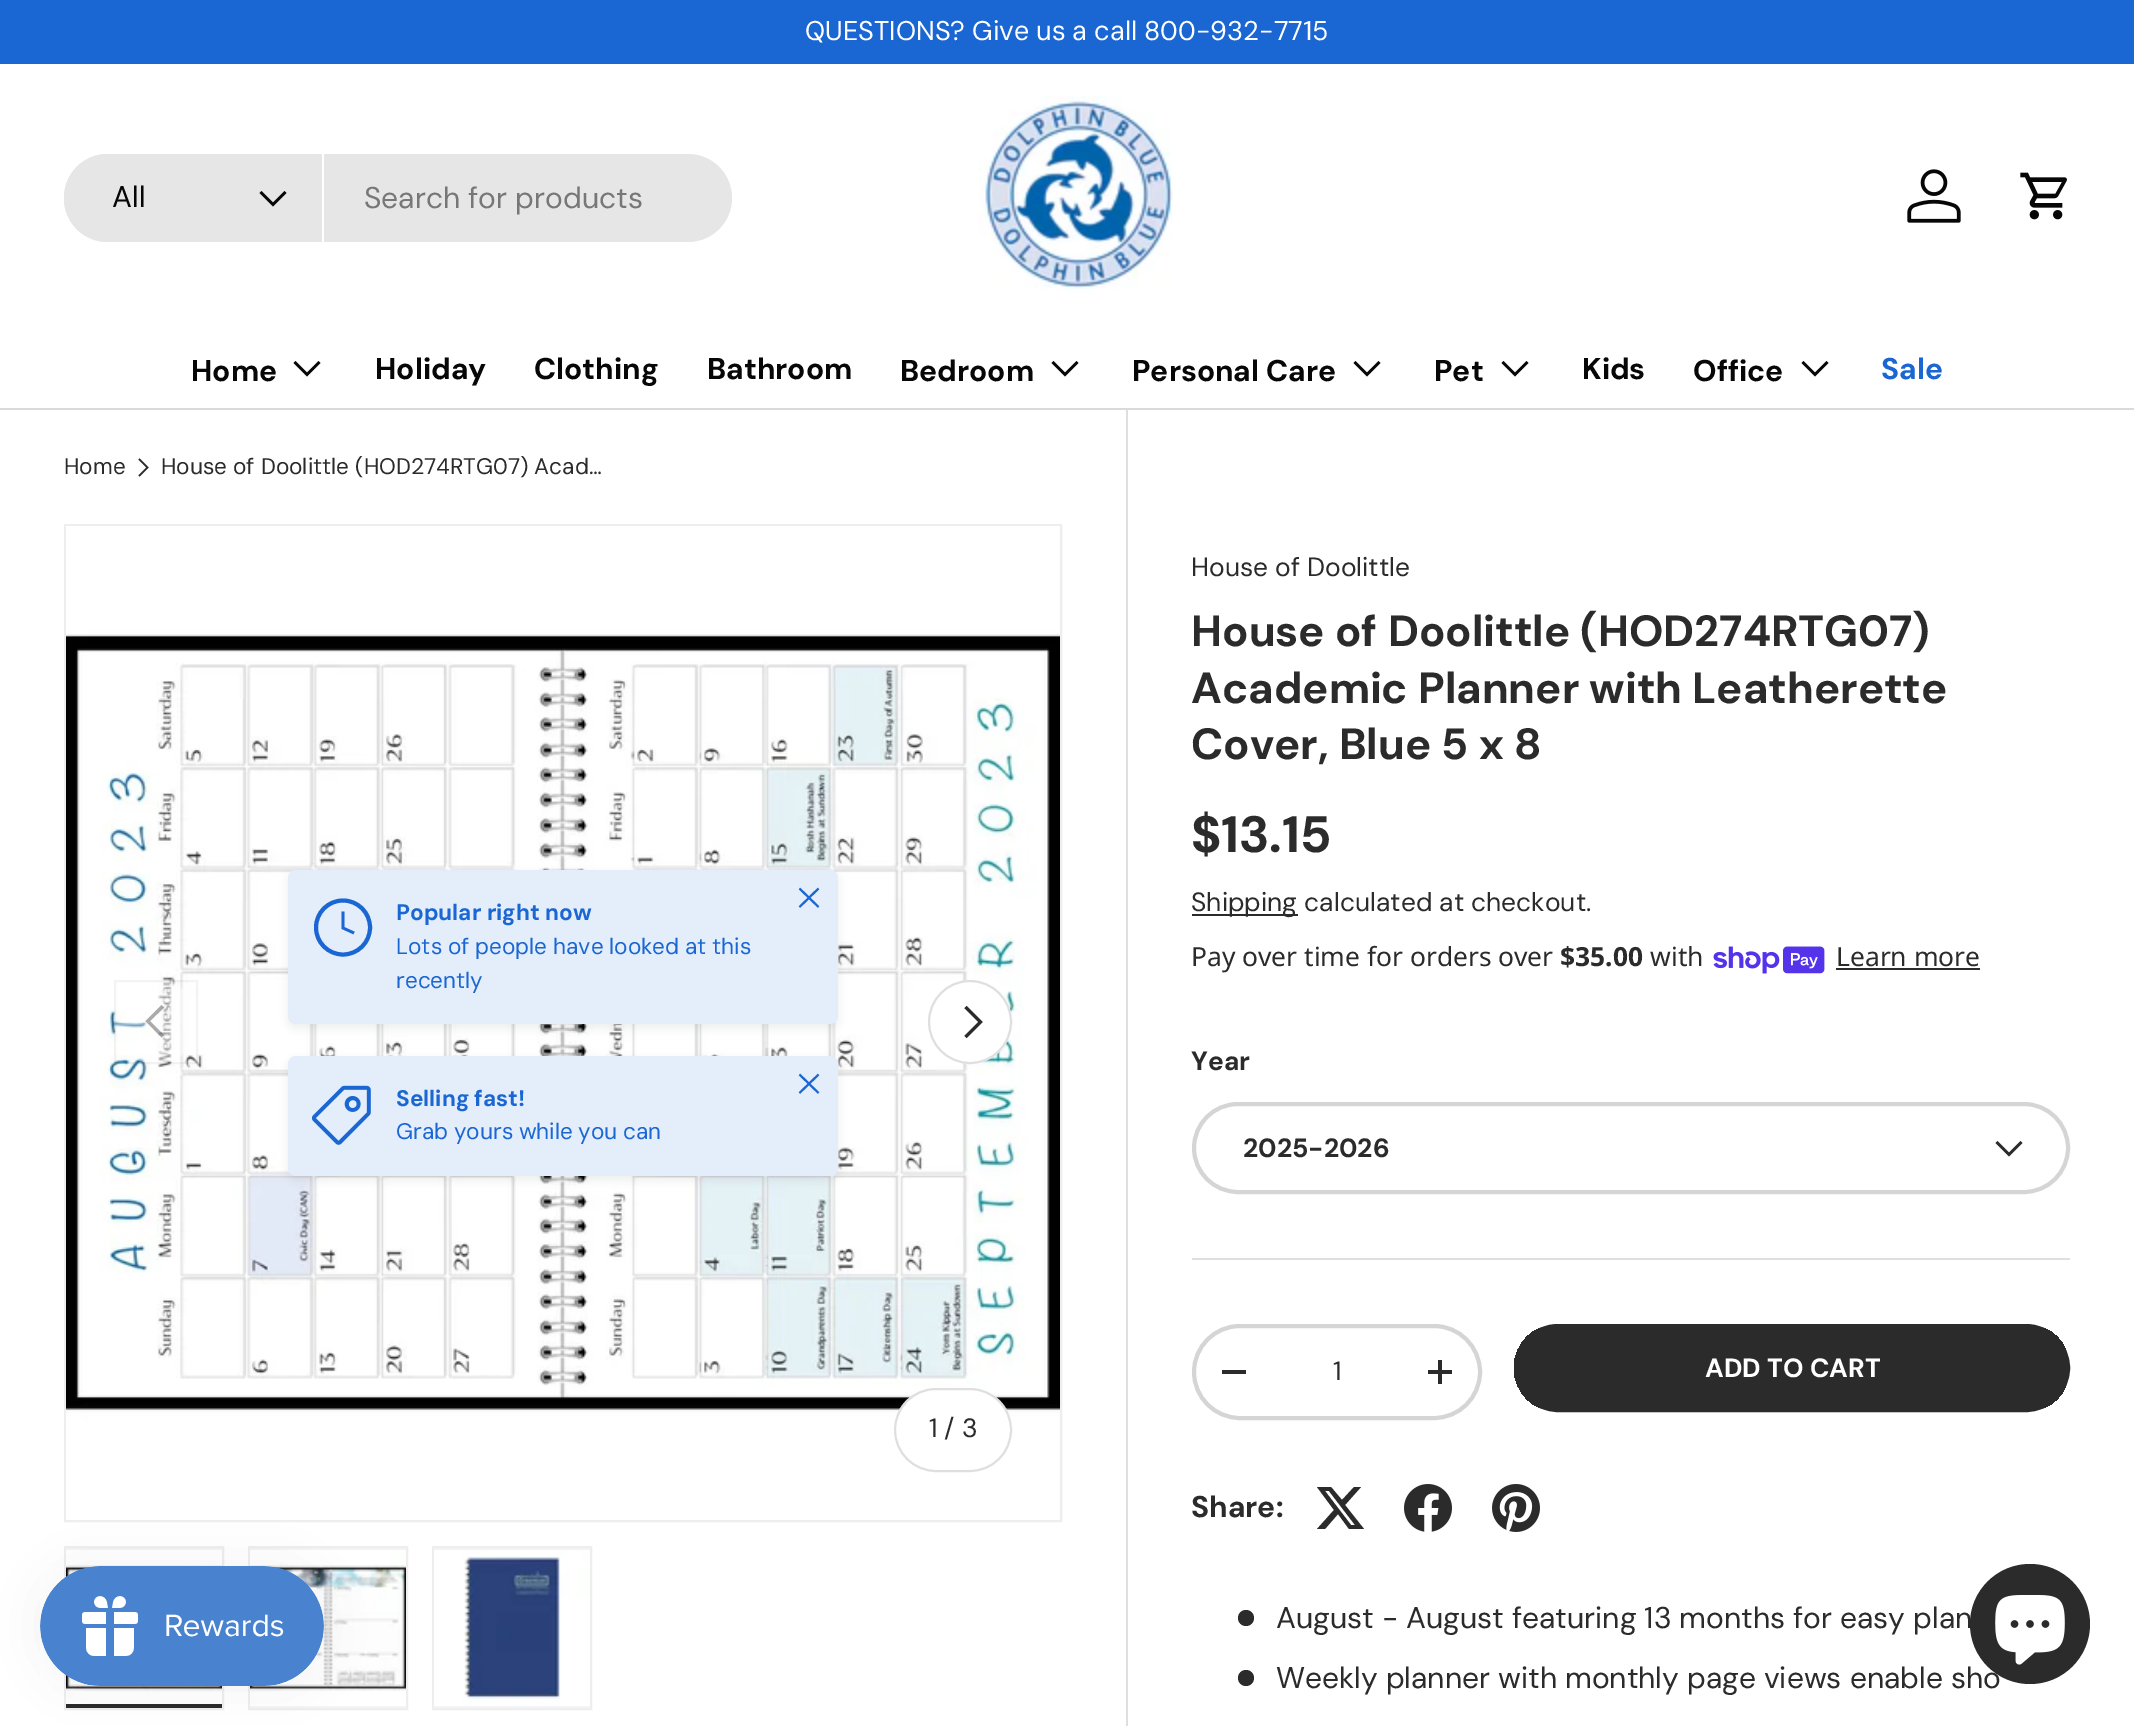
%!PS-Adobe-3.0
%%BoundingBox: 0 0 2134 1726
%%LanguageLevel: 3
%%Pages: 1
%%EndComments
%%BeginProlog
/setalpha { dup .setfillconstantalpha .setstrokeconstantalpha } def
/rrect { 5 dict begin { /r /h /w /y /x } { exch def } forall
  x r add y moveto x w add y 2 copy h add r arct x w add y h add x 1 index r arct
  x y h add x y r arct x y 2 copy exch w add exch r arct closepath end } def
/softshadow { 12 dict begin { /a /b /q /h /w /y /x } { exch def } forall gsave /was 0 def
  9 -2 -9 { dup b mul 4 div /e exch def 1 sub .425 mul 2.718 exch exp 1 add a .99 .min exch div /now exch def
    1 1 now sub 1 was sub div sub setalpha /was now def
    w h .min e 2 mul add 0 gt { x e sub y e sub w e 2 mul add h e 2 mul add
      q e add b .6 mul add w h .min 2 div e add .min 0 .max rrect fill } if } for grestore end } def
/drawimage { 5 dict begin { /h /w /y /x /name } { exch def } forall
  gsave x y translate w h scale
  w h 8 [w 0 0 h 0 0] name (r) file false 3 colorimage grestore end } def
%%EndProlog
%%BeginSetup
<< /PageSize [2134 1726] /PageUsesTransparency true >> setpagedevice
%%EndSetup
%%Page: 1 1
0 .pushpdf14devicefilter
0 1726 translate 1 -1 scale
4 setmiterlimit
1 setgray
0 0 2134 1726 rectfill
0.102 0.4 0.824 setrgbcolor
0 0 2134 64 rectfill
0.855 setgray
0 408 2134 2 rectfill
0.902 setgray
64 154 668 88 44 rrect fill
newpath 108 154 moveto 324 154 lineto 324 242 lineto 108 242 lineto 83.5 242 64 222.5 64 198 curveto 64 173.5 83.5 154 108 154 curveto closepath fill
1 setgray
322 154 2 88 rectfill
0.027 setgray
2.5 setlinewidth
newpath 285.5 192 moveto 273 204.5 lineto 260.5 192 lineto stroke
(images/1.raw) 978 96 195 194 drawimage
(images/2.raw) 1907 169 54 54 drawimage
(images/3.raw) 2020 172 47 48 drawimage
newpath 319.5 362 moveto 307 374.5 lineto 294.5 362 lineto stroke
newpath 1077.5 362 moveto 1065 374.5 lineto 1052.5 362 lineto stroke
newpath 1379.5 362 moveto 1367 374.5 lineto 1354.5 362 lineto stroke
newpath 1527.5 362 moveto 1515 374.5 lineto 1502.5 362 lineto stroke
newpath 1827.5 362 moveto 1815 374.5 lineto 1802.5 362 lineto stroke
0.165 0.169 0.165 setrgbcolor
1.7 setlinewidth
newpath 139 459 moveto 147.5 467.5 lineto 139 476 lineto stroke
0.933 setgray
2 setlinewidth
65 525 996 996 rectstroke
(images/4.raw) 66 526 994 994 drawimage
0.129 0.169 0.212 setrgbcolor
288 874 550 154 8 4 0.08 softshadow
0.894 0.929 0.98 setrgbcolor
288 870 550 154 8 rrect fill
0.102 0.4 0.824 setrgbcolor
4 setlinewidth
newpath 343 927.5 27 0 360 arc closepath stroke
2.7 setlinewidth
newpath 343 911.5 moveto 343 928 lineto 354 933 lineto stroke
2 setlinewidth
1 setlinejoin
newpath 799.5 907 moveto 818.5 888.5 lineto 799.5 888.5 moveto 818.5 907 lineto stroke
0.129 0.169 0.212 setrgbcolor
288 1060 550 120 8 4 0.08 softshadow
0.894 0.929 0.98 setrgbcolor
288 1056 550 120 8 rrect fill
(images/5.raw) 312 1085 59 60 drawimage
0.102 0.4 0.824 setrgbcolor
newpath 799.5 1093 moveto 818.5 1074.5 lineto 799.5 1074.5 moveto 818.5 1093 lineto stroke
0.4 setalpha
1 setgray
newpath 156 1022 42 0 360 arc closepath fill
0.06 setalpha
0.165 0.169 0.165 setrgbcolor
0 setlinejoin
115 981 82 82 rectstroke
0.4 setalpha
newpath 145.5 1021 moveto 161.5 1005 lineto 164 1007.5 lineto 150 1021 lineto 164 1035 lineto 161.5 1037.5 lineto closepath fill
1 setalpha
1 setgray
newpath 970 1022 42 0 360 arc closepath fill
0.15 setalpha
0.165 0.169 0.165 setrgbcolor
newpath 970 1022 41 0 360 arc closepath stroke
1 setalpha
3 setlinewidth
newpath 965.5 1007 moveto 980.5 1022 lineto 965.5 1037 lineto stroke
1 setgray
894 1388 118 84 42 rrect fill
0.15 setalpha
0.165 0.169 0.165 setrgbcolor
2 setlinewidth
895 1389 116 82 41 rrect stroke
1 setalpha
0.957 setgray
66 1548 156 2 rectfill
0.933 setgray
65 1547 158 162 rectstroke
(images/6.raw) 66 1550 156 154 drawimage
0.165 0.169 0.165 setrgbcolor
66 1704 156 4 rectfill
0.957 setgray
newpath 249 1547 moveto 407 1547 lineto 407 1709 lineto 249 1709 lineto closepath gsave fill grestore
0.933 setgray
stroke
(images/7.raw) 250 1550 156 156 drawimage
0.957 setgray
newpath 433 1547 moveto 591 1547 lineto 591 1709 lineto 433 1709 lineto closepath gsave fill grestore
0.933 setgray
stroke
(images/8.raw) 434 1550 156 156 drawimage
0.875 setgray
1126 410 2 1316 rectfill
0.165 0.169 0.165 setrgbcolor
1192 914 106 2 rectfill
(images/9.raw) 1713 946 112 28 drawimage
1836 968 144 2 rectfill
0.831 0.835 0.831 setrgbcolor
4 setlinewidth
1194 1104 874 88 44 rrect stroke
0.165 0.169 0.165 setrgbcolor
2.5 setlinewidth
newpath 2021.5 1142 moveto 2009 1154.5 lineto 1996.5 1142 lineto stroke
0.875 setgray
1192 1258 878 2 rectfill
0.831 0.835 0.831 setrgbcolor
4 setlinewidth
1194 1326 286 92 46 rrect stroke
0.165 0.169 0.165 setrgbcolor
1222 1370 24 4 rectfill
1428 1370 24 4 rectfill
1438 1360 4 24 rectfill
gsave
1514 1324 556 88 44 rrect clip newpath
gsave newpath 1514 1328 moveto 2066 1328 lineto 2066 1408 lineto 1514 1408 lineto closepath clip newpath
<< /ShadingType 2 /ColorSpace /DeviceRGB /Coords [461 1173 2027 1563] /Extend [true true] /Function << /FunctionType 3 /Domain [0 1] /Functions [<< /FunctionType 2 /Domain [0 1] /C0 [0.322 0.325 0.322] /C1 [0.322 0.325 0.322] /N 1 >> << /FunctionType 2 /Domain [0 1] /C0 [0.165 0.169 0.165] /C1 [0.165 0.169 0.165] /N 1 >>] /Bounds [0.6] /Encode [0 1 0 1] >> >> shfill grestore
grestore
1516 1326 552 84 42 rrect stroke
newpath 1354 1487 moveto 1361 1487 lineto 1345 1505 lineto 1364 1529 lineto 1349 1529 lineto 1338 1514 lineto 1325 1529 lineto 1317 1529 lineto 1334 1510 lineto 1317 1487 lineto 1331 1487 lineto 1342 1500 lineto closepath 1351 1525 moveto 1355 1525 lineto 1329 1491 lineto 1325 1491 lineto closepath fill
(images/10.raw) 1404 1484 48 48 drawimage
(images/11.raw) 1492 1484 48 48 drawimage
newpath 1246 1618 8 0 360 arc closepath fill
newpath 1246 1678 8 0 360 arc closepath fill
0 setgray
40 1566 284 120 60 25 0.05 softshadow
(images/12.raw) 40 1566 284 120 drawimage
0.165 0.169 0.165 setrgbcolor
newpath 2030 1624 60 0 360 arc closepath fill
(images/13.raw) 1995 1595 70 70 drawimage
/DMSans-Regular [27 0 0 -27 0 0] selectfont
1 setgray
805 40 moveto -0.25 0 32 (QUESTIONS? Give us a call 800-932-7715) widthshow
/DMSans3-Regular [30 0 0 -30 0 0] selectfont
0.027 setgray
112 207 moveto (All) show
0.467 setgray
364 208 moveto (Search for products) show
/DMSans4-Bold [30 0 0 -30 0 0] selectfont
0.027 setgray
191 381 moveto (Home) show
375 379 moveto (Holiday) show
534 379 moveto (Clothing) show
707 379 moveto (Bathroom) show
900 381 moveto (Bedroom) show
1132 381 moveto (Personal Care) show
1434 381 moveto (Pet) show
1582 379 moveto (Kids) show
1693 381 moveto (Office) show
0.102 0.4 0.824 setrgbcolor
1881 379 moveto (Sale) show
/DMSans-Regular [22.5 0 0 -22.5 0 0] selectfont
0.165 0.169 0.165 setrgbcolor
64 474 moveto (Home) show
gsave
160 456 450 22 rectclip
161 474 moveto (House of Doolittle \(HOD274RTG07\) Acad…) show
grestore
/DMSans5-Bold [22.5 0 0 -22.5 0 0] selectfont
0.102 0.4 0.824 setrgbcolor
396 920 moveto (Popular right now) show
/DMSans-Regular [22.5 0 0 -22.5 0 0] selectfont
396 954 moveto -0.25 0 32 (Lots of people have looked at this) widthshow
396 988 moveto (recently) show
/DMSans5-Bold [22.5 0 0 -22.5 0 0] selectfont
396 1106 moveto (Selling fast!) show
/DMSans-Regular [22.5 0 0 -22.5 0 0] selectfont
396 1139 moveto -0.5 0 32 (Grab yours while you can) widthshow
/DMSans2-Regular [26.4 0 0 -26.4 0 0] selectfont
0.165 0.169 0.165 setrgbcolor
929 1437 moveto (1 / 3) show
1191 576 moveto (House of Doolittle) show
/DMSans-Bold [43.6 0 0 -43.6 0 0] selectfont
1191 646 moveto (House of Doolittle \(HOD274RTG07\)) show
1191 703 moveto (Academic Planner with Leatherette) show
1191 759 moveto (Cover, Blue 5 x 8) show
/DMSans2-Bold [51 0 0 -51 0 0] selectfont
1191 852 moveto ($13.15) show
/DMSans2-Regular [26.4 0 0 -26.4 0 0] selectfont
1191 911 moveto (Shipping calculated at checkout.) show
/NotoSans-Regular [26.4 0 0 -26.4 0 0] selectfont
1191 966 moveto (Pay over time for orders over) show
/NotoSans-Bold [26.4 0 0 -26.4 0 0] selectfont
1560 966 moveto ($35.00) show
/NotoSans-Regular [26.4 0 0 -26.4 0 0] selectfont
1650 966 moveto (with) show
1836 966 moveto (Learn more) show
/DMSans3-Bold [26.4 0 0 -26.4 0 0] selectfont
1191 1070 moveto (Year) show
1243 1157 moveto (2025-2026) show
/DMSans2-Regular [26.4 0 0 -26.4 0 0] selectfont
1333 1380 moveto (1) show
/DMSans3-Bold [26.4 0 0 -26.4 0 0] selectfont
1 setgray
1705 1377 moveto (ADD TO CART) show
/DMSans4-Bold [30 0 0 -30 0 0] selectfont
0.165 0.169 0.165 setrgbcolor
1191 1517 moveto (Share:) show
/DMSans3-Regular [30 0 0 -30 0 0] selectfont
1276 1628 moveto (August - August featuring 13 months for easy plan) show
1276 1688 moveto (Weekly planner with monthly page views enable sho) show
.poppdf14devicefilter showpage
%%EOF
